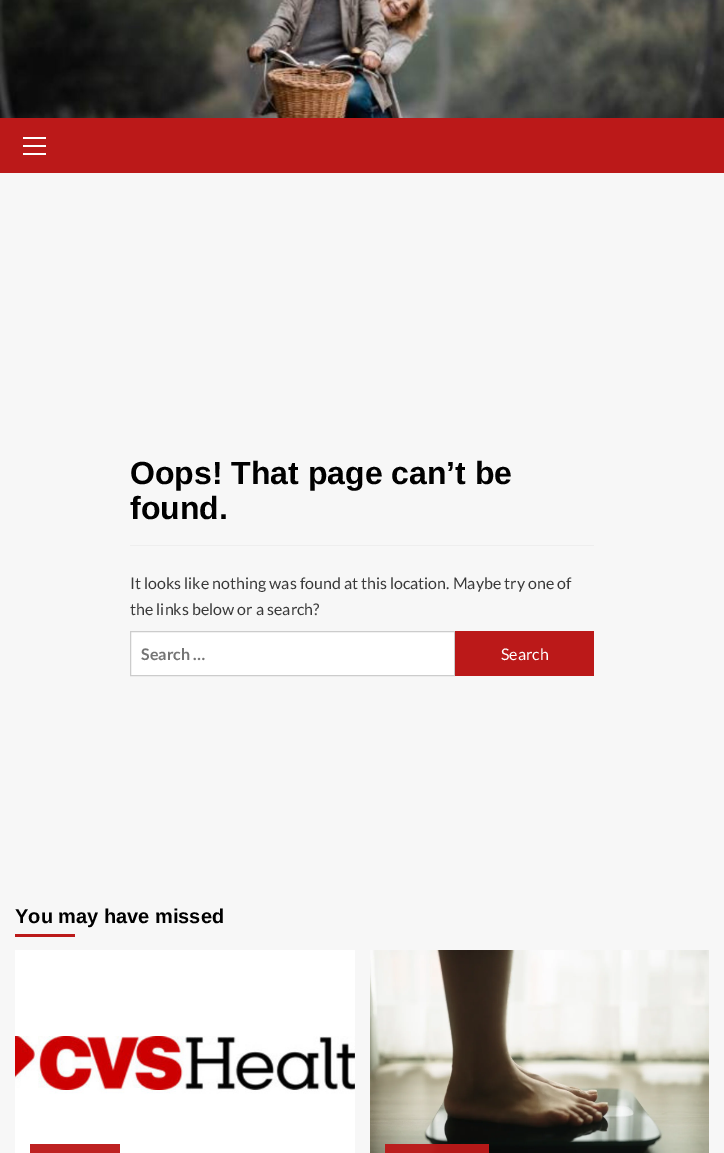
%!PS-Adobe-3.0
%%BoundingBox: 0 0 724 1153
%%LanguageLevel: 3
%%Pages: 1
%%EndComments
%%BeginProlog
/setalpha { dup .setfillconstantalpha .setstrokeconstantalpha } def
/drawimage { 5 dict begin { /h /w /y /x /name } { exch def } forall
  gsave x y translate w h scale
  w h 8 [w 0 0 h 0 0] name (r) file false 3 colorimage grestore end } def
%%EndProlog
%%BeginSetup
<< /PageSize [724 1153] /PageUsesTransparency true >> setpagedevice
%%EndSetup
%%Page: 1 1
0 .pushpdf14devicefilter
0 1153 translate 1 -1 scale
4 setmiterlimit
0.969 setgray
0 0 724 1153 rectfill
(images/1.raw) 0 0 724 118 drawimage
0.733 0.098 0.098 setrgbcolor
0 118 724 55 rectfill
1 setgray
23 145 23 2 rectfill
23 137 23 2 rectfill
23 153 23 2 rectfill
0.933 setgray
130 545 464 1 rectfill
1 setgray
newpath 130.5 631.5 moveto 454.5 631.5 lineto 454.5 675.5 lineto 130.5 675.5 lineto closepath gsave fill grestore
0.8 setgray
stroke
0.733 0.098 0.098 setrgbcolor
455 631 139 45 rectfill
15 934 60 3 rectfill
(images/2.raw) 15 950 340 203 drawimage
0.745 0.133 0.133 setrgbcolor
30 1144 90 9 rectfill
(images/3.raw) 370 950 339 203 drawimage
0.96 setalpha
0.733 0.098 0.098 setrgbcolor
385 1144 104 9 rectfill
/LiberationSans-Bold [32 0 0 -32 0 0] selectfont
1 setalpha
0 setgray
130 484 moveto (Oops! That page can’t be) show
130 519 moveto (found.) show
/Lato-Regular [16 0 0 -16 0 0] selectfont
0.227 setgray
130 589 moveto (It looks like nothing was found at this location. Maybe try one of) show
130 615 moveto (the links below or a search?) show
/Lato-Bold [16 0 0 -16 0 0] selectfont
0.459 setgray
141 660 moveto (Search …) show
/Lato-Regular [16 0 0 -16 0 0] selectfont
1 setgray
501 660 moveto (Search) show
/LiberationSans-Bold [20 0 0 -20 0 0] selectfont
0 setgray
15 923 moveto (You may have missed) show
.poppdf14devicefilter showpage
%%EOF
